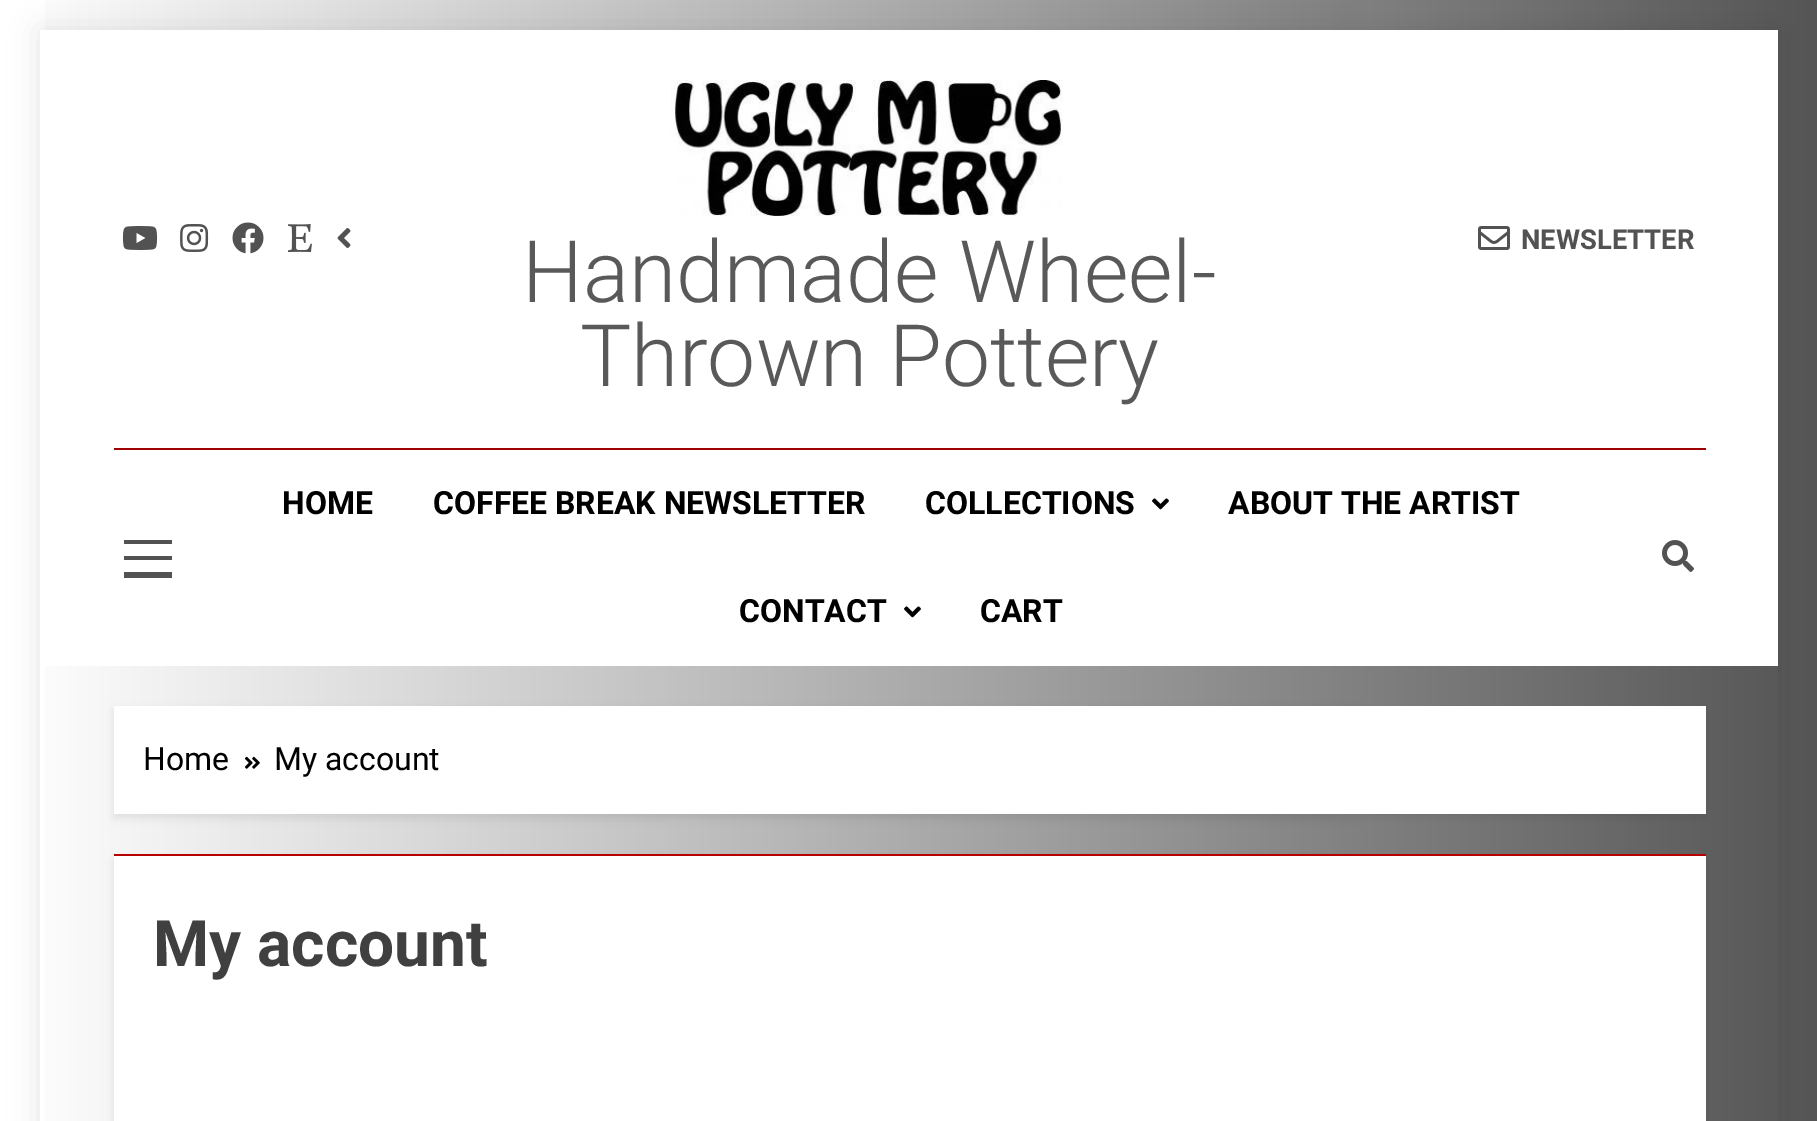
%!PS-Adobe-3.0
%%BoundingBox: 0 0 1817 1121
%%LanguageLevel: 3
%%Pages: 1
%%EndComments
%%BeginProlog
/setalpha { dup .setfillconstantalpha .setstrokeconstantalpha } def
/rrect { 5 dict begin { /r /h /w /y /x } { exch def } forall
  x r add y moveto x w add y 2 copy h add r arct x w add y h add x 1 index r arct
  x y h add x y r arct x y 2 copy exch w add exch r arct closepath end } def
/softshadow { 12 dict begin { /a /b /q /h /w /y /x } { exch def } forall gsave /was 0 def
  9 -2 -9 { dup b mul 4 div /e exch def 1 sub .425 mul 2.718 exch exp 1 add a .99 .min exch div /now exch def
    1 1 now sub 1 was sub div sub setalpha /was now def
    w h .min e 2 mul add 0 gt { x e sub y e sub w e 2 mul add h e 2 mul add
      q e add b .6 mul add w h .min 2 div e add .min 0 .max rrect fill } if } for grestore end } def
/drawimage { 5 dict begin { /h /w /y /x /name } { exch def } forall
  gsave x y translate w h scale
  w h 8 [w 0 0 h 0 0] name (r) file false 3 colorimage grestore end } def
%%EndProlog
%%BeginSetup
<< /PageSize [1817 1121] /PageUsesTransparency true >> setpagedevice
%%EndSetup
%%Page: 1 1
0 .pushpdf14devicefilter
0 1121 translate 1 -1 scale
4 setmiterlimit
1 setgray
0 0 1817 1121 rectfill
gsave newpath 45 0 moveto 1817 0 lineto 1817 1121 lineto 45 1121 lineto closepath clip newpath
<< /ShadingType 2 /ColorSpace /DeviceRGB /Coords [0 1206 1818 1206] /Extend [true true] /Function << /FunctionType 3 /Domain [0 1] /Functions [<< /FunctionType 2 /Domain [0 1] /C0 [1 1 1] /C1 [1 1 1] /N 1 >> << /FunctionType 2 /Domain [0 1] /C0 [1 1 1] /C1 [0.333 0.333 0.333] /N 1 >>] /Bounds [0.01] /Encode [0 1 0 1] >> >> shfill grestore
gsave
newpath 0 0 moveto 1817 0 lineto 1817 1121 lineto 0 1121 lineto closepath 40 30 moveto 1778 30 lineto 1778 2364 lineto 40 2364 lineto closepath eoclip newpath
0 setgray
40 30 1738 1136 0 15 0.1 softshadow
grestore
45 30 1733 636 rectfill
(images/1.raw) 122 226 36 24 drawimage
(images/2.raw) 180 224 29 28 drawimage
(images/3.raw) 232 222 32 32 drawimage
(images/4.raw) 288 224 24 28 drawimage
(images/5.raw) 337 228 14 20 drawimage
(images/6.raw) 671 80 392 136 drawimage
(images/7.raw) 1478 226 32 24 drawimage
0.624 0 0 setrgbcolor
114 448 1592 2 rectfill
0.322 setgray
124 540 48 4 rectfill
124 556 48 4 rectfill
124 572 48 6 rectfill
(images/8.raw) 1152 498 17 12 drawimage
(images/8.raw) 904 606 17 12 drawimage
(images/9.raw) 1662 540 32 32 drawimage
0 setgray
114 710 1592 108 0 4 0.08 softshadow
1 setgray
114 706 1592 108 rectfill
(images/10.raw) 245 756 15 13 drawimage
0 setgray
114 860 1592 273 0 4 0.08 softshadow
1 setgray
114 856 1592 265 rectfill
0.718 0 0 setrgbcolor
114 854 1592 2 rectfill
/Roboto-Light [86 0 0 -86 0 0] selectfont
0.349 setgray
522 302 moveto (Handmade Wheel-) show
580 386 moveto (Thrown Pottery) show
/Roboto-Bold [27.5 0 0 -27.5 0 0] selectfont
0.322 setgray
1521 249 moveto (NEWSLETTER) show
/Roboto-Bold [32 0 0 -32 0 0] selectfont
0 setgray
282 514 moveto (HOME) show
433 514 moveto (COFFEE BREAK NEWSLETTER) show
925 514 moveto (COLLECTIONS) show
1228 514 moveto (ABOUT THE ARTIST) show
739 622 moveto (CONTACT) show
980 622 moveto (CART) show
/Roboto-Regular [32 0 0 -32 0 0] selectfont
143 770 moveto (Home) show
274 770 moveto (My account) show
/Roboto-Bold [64 0 0 -64 0 0] selectfont
0.251 setgray
153 966 moveto (My account) show
.poppdf14devicefilter showpage
%%EOF
